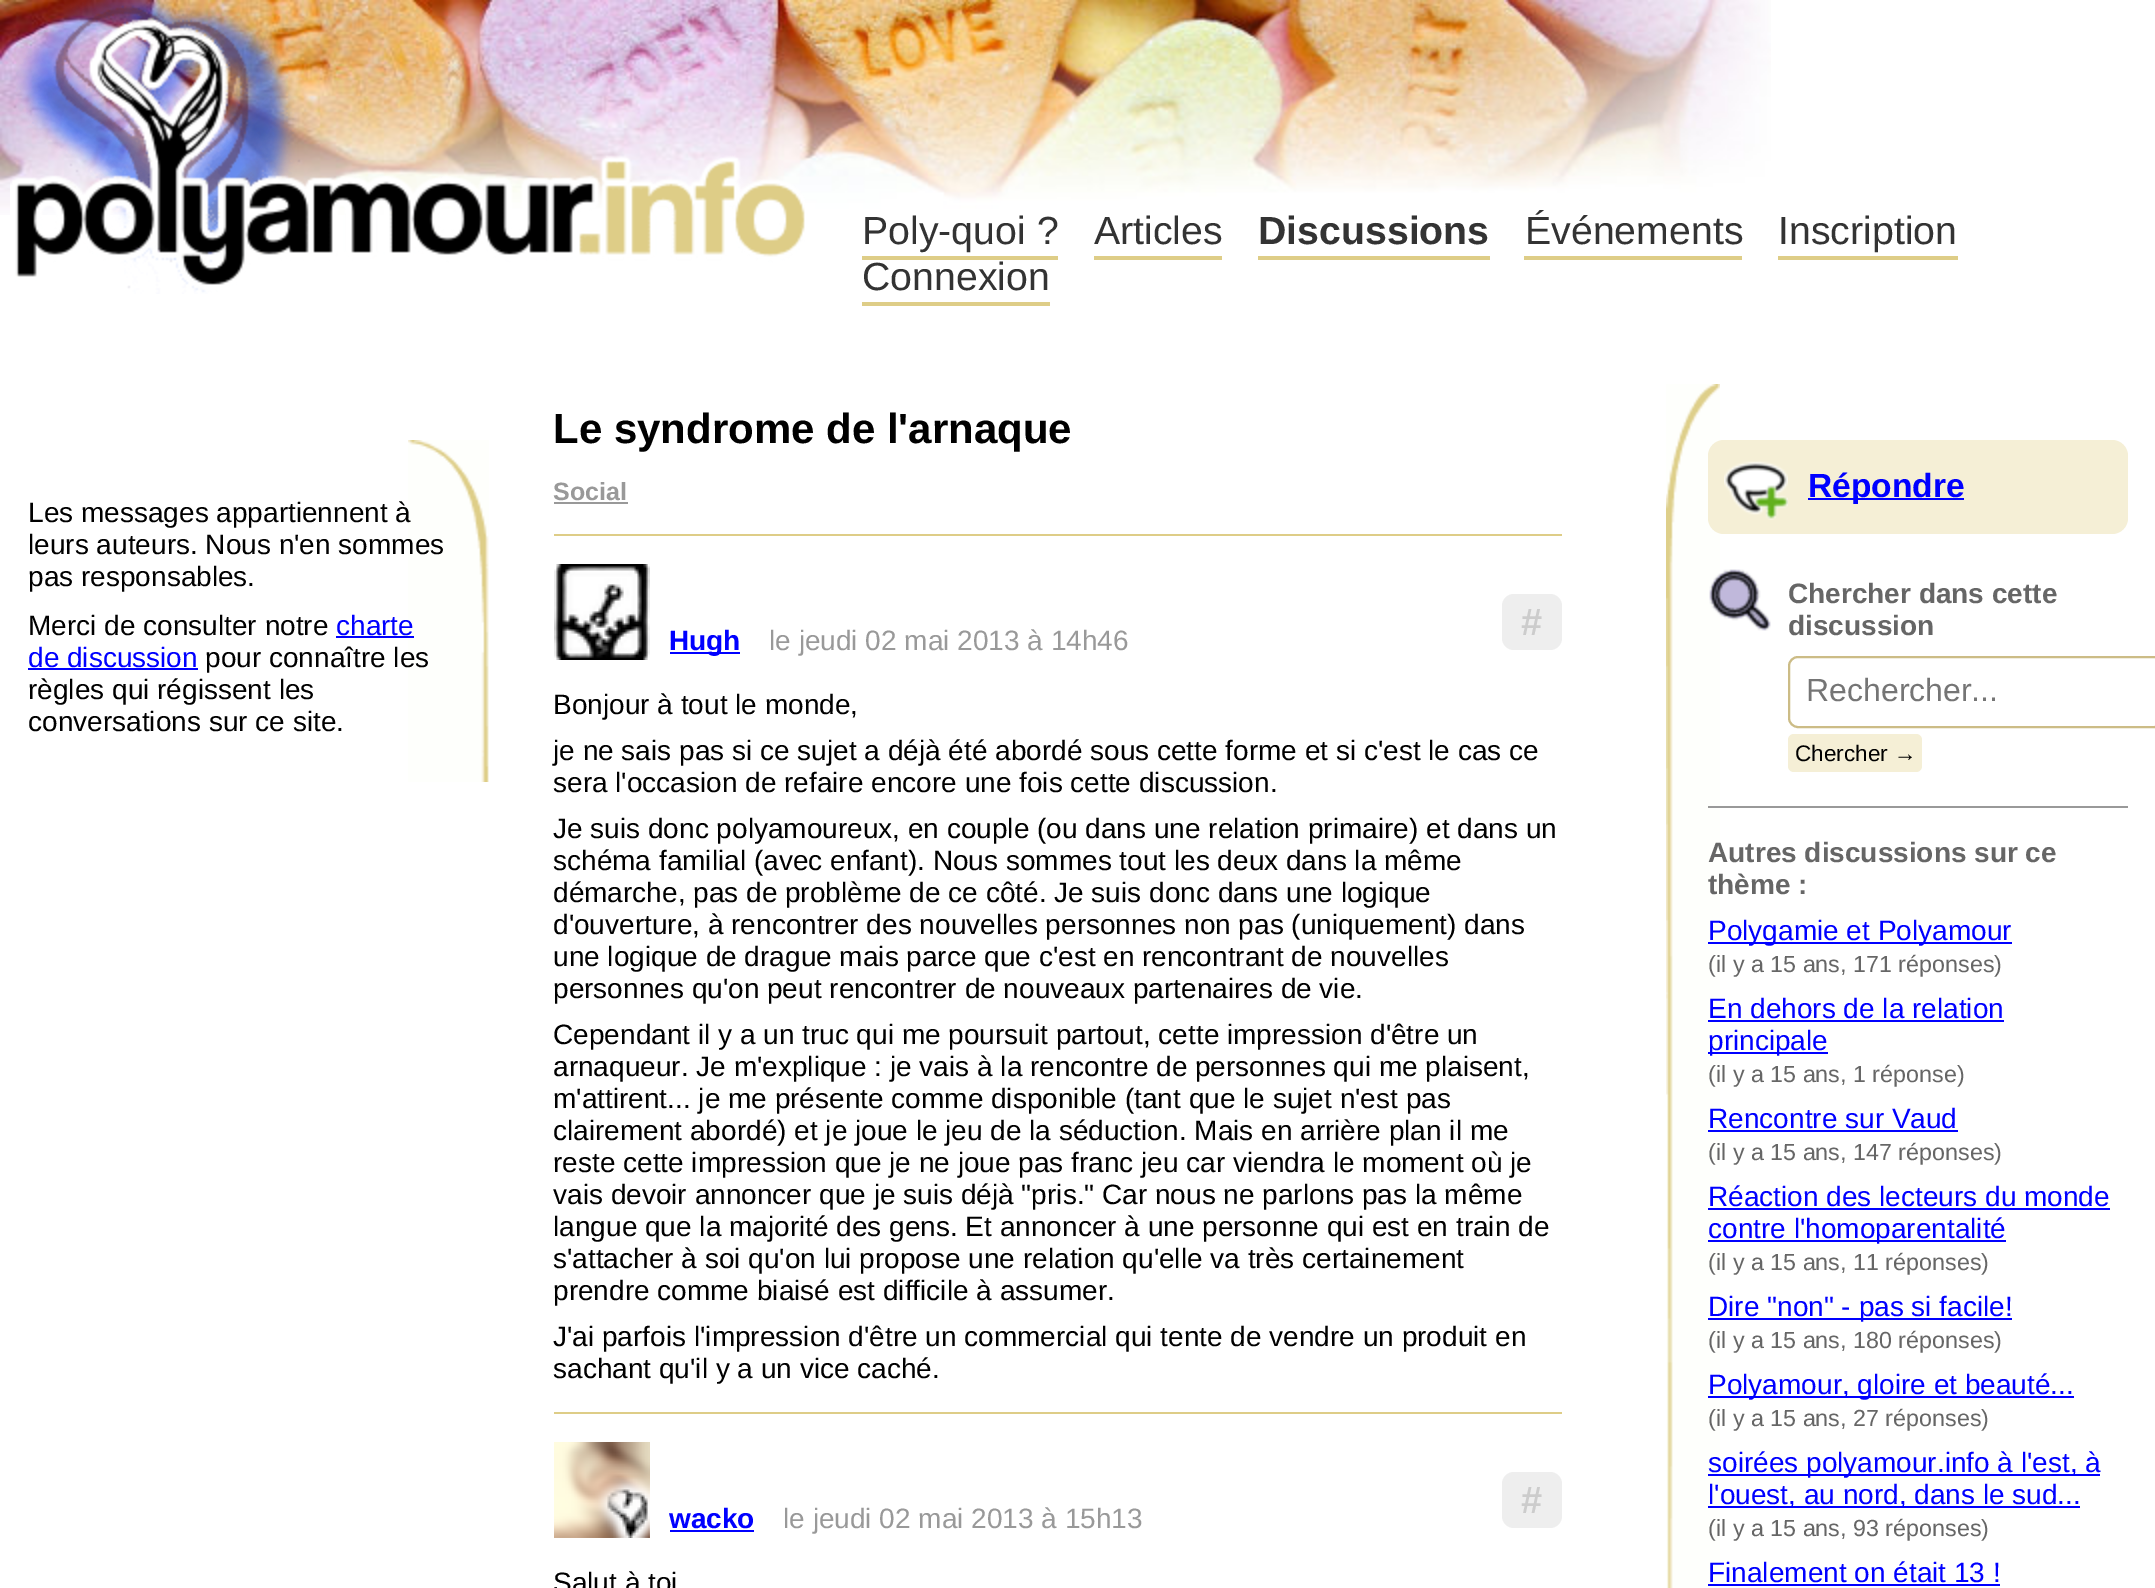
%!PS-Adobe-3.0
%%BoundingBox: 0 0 2155 1588
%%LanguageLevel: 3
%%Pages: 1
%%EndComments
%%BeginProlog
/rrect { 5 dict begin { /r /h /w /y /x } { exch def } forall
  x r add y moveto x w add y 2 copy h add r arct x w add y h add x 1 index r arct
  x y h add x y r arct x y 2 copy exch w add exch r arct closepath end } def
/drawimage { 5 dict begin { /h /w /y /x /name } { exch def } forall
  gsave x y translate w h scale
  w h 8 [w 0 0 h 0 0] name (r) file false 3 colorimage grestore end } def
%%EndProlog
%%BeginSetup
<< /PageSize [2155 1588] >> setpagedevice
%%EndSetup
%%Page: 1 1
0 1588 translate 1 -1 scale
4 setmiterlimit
1 setgray
0 0 2155 1588 rectfill
(images/1.raw) 0 0 1771 215 drawimage
(images/2.raw) 10 0 795 294 drawimage
0.871 0.804 0.529 setrgbcolor
862 256 196 4 rectfill
1094 256 128 4 rectfill
1258 256 232 4 rectfill
1524 256 218 4 rectfill
1778 256 180 4 rectfill
862 302 188 4 rectfill
(images/3.raw) 408 440 81 342 drawimage
0 0 1 setrgbcolor
336 636 78 2 rectfill
28 668 170 2 rectfill
0.6 setgray
554 502 74 2 rectfill
0.871 0.804 0.529 setrgbcolor
554 534 1008 2 rectfill
(images/4.raw) 554 564 96 96 drawimage
0.933 setgray
1502 594 60 56 12 rrect fill
0 0 1 setrgbcolor
670 652 70 2 rectfill
0.871 0.804 0.529 setrgbcolor
554 1412 1008 2 rectfill
(images/5.raw) 554 1442 96 96 drawimage
0.933 setgray
1502 1472 60 56 12 rrect fill
0 0 1 setrgbcolor
670 1530 84 2 rectfill
(images/6.raw) 1666 384 54 1204 drawimage
0.961 0.937 0.839 setrgbcolor
1708 440 420 94 16 rrect fill
(images/7.raw) 1724 461 64 59 drawimage
0 0 1 setrgbcolor
1808 498 156 2 rectfill
(images/8.raw) 1709 569 62 62 drawimage
0.6 setgray
1708 806 420 2 rectfill
0.8 0.737 0.525 setrgbcolor
2 setlinewidth
1789 657 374 70 9 rrect stroke
0.961 0.937 0.839 setrgbcolor
1788 734 134 38 6 rrect fill
0 0 1 setrgbcolor
1708 942 304 2 rectfill
1708 1020 296 2 rectfill
1708 1052 120 2 rectfill
1708 1130 250 2 rectfill
1708 1208 402 2 rectfill
1708 1240 298 2 rectfill
1708 1318 304 2 rectfill
1708 1396 366 2 rectfill
1708 1474 392 2 rectfill
1708 1506 372 2 rectfill
1708 1584 292 2 rectfill
/LiberationSans-Regular [39.25 0 0 -39.25 0 0] selectfont
0.2 setgray
862 244 moveto (Poly-quoi ?) show
1094 244 moveto (Articles) show
/LiberationSans-Bold [39.25 0 0 -39.25 0 0] selectfont
1258 244 moveto (Discussions) show
/LiberationSans-Regular [39.25 0 0 -39.25 0 0] selectfont
1525 244 moveto (Événements) show
1778 244 moveto (Inscription) show
862 290 moveto (Connexion) show
/LiberationSans-Regular [28 0 0 -28 0 0] selectfont
0 setgray
28 522 moveto (Les messages appartiennent à) show
28 554 moveto (leurs auteurs. Nous n'en sommes) show
28 586 moveto (pas responsables.) show
28 635 moveto (Merci de consulter notre) show
0 0 1 setrgbcolor
336 635 moveto (charte) show
28 667 moveto (de discussion) show
0 setgray
205 667 moveto (pour connaître les) show
28 699 moveto (règles qui régissent les) show
28 731 moveto (conversations sur ce site.) show
/LiberationSans-Bold [42 0 0 -42 0 0] selectfont
553 443 moveto (Le syndrome de l'arnaque) show
/LiberationSans-Bold [25 0 0 -25 0 0] selectfont
0.6 setgray
553 500 moveto (Social) show
/LiberationSans-Bold [38 0 0 -38 0 0] selectfont
0.8 setgray
1521 635 moveto (#) show
/LiberationSans-Bold [28 0 0 -28 0 0] selectfont
0 0 1 setrgbcolor
669 650 moveto (Hugh) show
/LiberationSans-Regular [28 0 0 -28 0 0] selectfont
0.6 setgray
769 650 moveto (le jeudi 02 mai 2013 à 14h46) show
0 setgray
553 714 moveto (Bonjour à tout le monde,) show
553 760 moveto (je ne sais pas si ce sujet a déjà été abordé sous cette forme et si c'est le cas ce) show
553 792 moveto (sera l'occasion de refaire encore une fois cette discussion.) show
553 838 moveto (Je suis donc polyamoureux, en couple \(ou dans une relation primaire\) et dans un) show
553 870 moveto (schéma familial \(avec enfant\). Nous sommes tout les deux dans la même) show
553 902 moveto (démarche, pas de problème de ce côté. Je suis donc dans une logique) show
553 934 moveto (d'ouverture, à rencontrer des nouvelles personnes non pas \(uniquement\) dans) show
553 966 moveto (une logique de drague mais parce que c'est en rencontrant de nouvelles) show
553 998 moveto (personnes qu'on peut rencontrer de nouveaux partenaires de vie.) show
553 1044 moveto (Cependant il y a un truc qui me poursuit partout, cette impression d'être un) show
553 1076 moveto (arnaqueur. Je m'explique : je vais à la rencontre de personnes qui me plaisent,) show
553 1108 moveto (m'attirent... je me présente comme disponible \(tant que le sujet n'est pas) show
553 1140 moveto (clairement abordé\) et je joue le jeu de la séduction. Mais en arrière plan il me) show
553 1172 moveto (reste cette impression que je ne joue pas franc jeu car viendra le moment où je) show
553 1204 moveto (vais devoir annoncer que je suis déjà "pris." Car nous ne parlons pas la même) show
553 1236 moveto (langue que la majorité des gens. Et annoncer à une personne qui est en train de) show
553 1268 moveto (s'attacher à soi qu'on lui propose une relation qu'elle va très certainement) show
553 1300 moveto (prendre comme biaisé est difficile à assumer.) show
553 1346 moveto (J'ai parfois l'impression d'être un commercial qui tente de vendre un produit en) show
553 1378 moveto (sachant qu'il y a un vice caché.) show
/LiberationSans-Bold [38 0 0 -38 0 0] selectfont
0.8 setgray
1521 1513 moveto (#) show
/LiberationSans-Bold [28 0 0 -28 0 0] selectfont
0 0 1 setrgbcolor
669 1528 moveto (wacko) show
/LiberationSans-Regular [28 0 0 -28 0 0] selectfont
0.6 setgray
783 1528 moveto (le jeudi 02 mai 2013 à 15h13) show
0 setgray
553 1592 moveto (Salut à toi) show
/LiberationSans-Bold [33.5 0 0 -33.5 0 0] selectfont
0 0 1 setrgbcolor
1808 497 moveto (Répondre) show
/LiberationSans-Bold [28 0 0 -28 0 0] selectfont
0.4 setgray
1788 603 moveto (Chercher dans cette) show
1788 635 moveto (discussion) show
/LiberationSans-Regular [32 0 0 -32 0 0] selectfont
0.459 setgray
1806 701 moveto (Rechercher...) show
/LiberationSans-Regular [22.5 0 0 -22.5 0 0] selectfont
0 setgray
1795 761 moveto (Chercher →) show
/LiberationSans-Bold [28 0 0 -28 0 0] selectfont
0.4 setgray
1708 862 moveto (Autres discussions sur ce) show
1708 894 moveto (thème :) show
/LiberationSans-Regular [28 0 0 -28 0 0] selectfont
0 0 1 setrgbcolor
1708 940 moveto (Polygamie et Polyamour) show
/LiberationSans-Regular [23.3 0 0 -23.3 0 0] selectfont
0.4 setgray
1708 972 moveto (\(il y a 15 ans, 171 réponses\)) show
/LiberationSans-Regular [28 0 0 -28 0 0] selectfont
0 0 1 setrgbcolor
1708 1018 moveto (En dehors de la relation) show
1708 1050 moveto (principale) show
/LiberationSans-Regular [23.3 0 0 -23.3 0 0] selectfont
0.4 setgray
1708 1082 moveto (\(il y a 15 ans, 1 réponse\)) show
/LiberationSans-Regular [28 0 0 -28 0 0] selectfont
0 0 1 setrgbcolor
1708 1128 moveto (Rencontre sur Vaud) show
/LiberationSans-Regular [23.3 0 0 -23.3 0 0] selectfont
0.4 setgray
1708 1160 moveto (\(il y a 15 ans, 147 réponses\)) show
/LiberationSans-Regular [28 0 0 -28 0 0] selectfont
0 0 1 setrgbcolor
1708 1206 moveto (Réaction des lecteurs du monde) show
1708 1238 moveto (contre l'homoparentalité) show
/LiberationSans-Regular [23.3 0 0 -23.3 0 0] selectfont
0.4 setgray
1708 1270 moveto (\(il y a 15 ans, 11 réponses\)) show
/LiberationSans-Regular [28 0 0 -28 0 0] selectfont
0 0 1 setrgbcolor
1708 1316 moveto (Dire "non" - pas si facile!) show
/LiberationSans-Regular [23.3 0 0 -23.3 0 0] selectfont
0.4 setgray
1708 1348 moveto (\(il y a 15 ans, 180 réponses\)) show
/LiberationSans-Regular [28 0 0 -28 0 0] selectfont
0 0 1 setrgbcolor
1708 1394 moveto (Polyamour, gloire et beauté...) show
/LiberationSans-Regular [23.3 0 0 -23.3 0 0] selectfont
0.4 setgray
1708 1426 moveto (\(il y a 15 ans, 27 réponses\)) show
/LiberationSans-Regular [28 0 0 -28 0 0] selectfont
0 0 1 setrgbcolor
1708 1472 moveto (soirées polyamour.info à l'est, à) show
1708 1504 moveto (l'ouest, au nord, dans le sud...) show
/LiberationSans-Regular [23.3 0 0 -23.3 0 0] selectfont
0.4 setgray
1708 1536 moveto (\(il y a 15 ans, 93 réponses\)) show
/LiberationSans-Regular [28 0 0 -28 0 0] selectfont
0 0 1 setrgbcolor
1708 1582 moveto (Finalement on était 13 !) show
showpage
%%EOF
